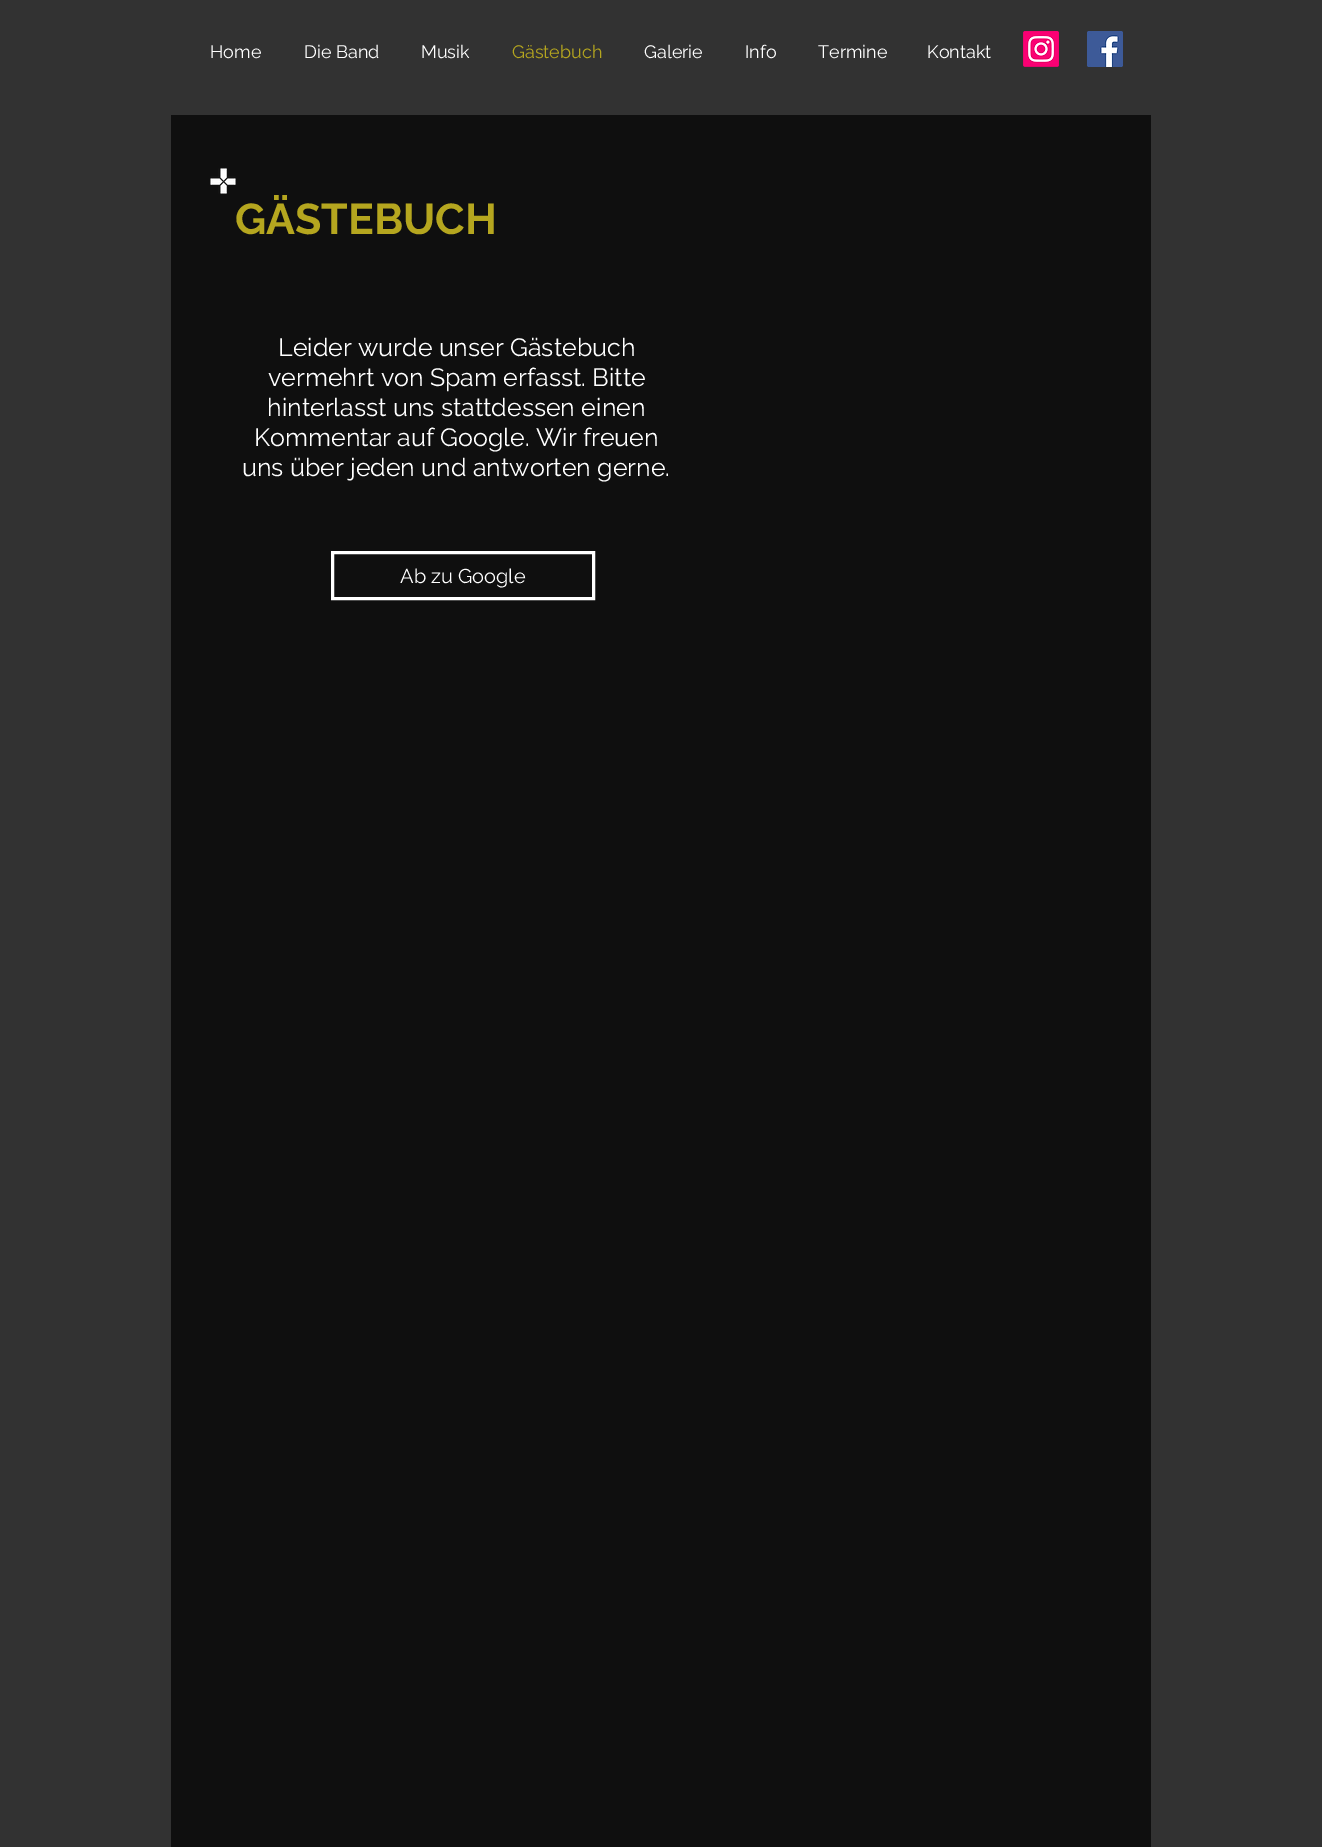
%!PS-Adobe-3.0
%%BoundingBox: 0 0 1322 1847
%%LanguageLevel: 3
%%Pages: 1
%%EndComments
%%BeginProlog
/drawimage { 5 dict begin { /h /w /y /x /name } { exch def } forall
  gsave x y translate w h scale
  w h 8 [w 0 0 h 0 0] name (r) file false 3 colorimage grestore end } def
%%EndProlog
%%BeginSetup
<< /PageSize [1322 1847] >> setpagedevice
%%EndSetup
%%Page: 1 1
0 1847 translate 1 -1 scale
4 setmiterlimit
0.196 setgray
0 0 1322 1847 rectfill
(images/1.raw) 1023 31 36 36 drawimage
(images/2.raw) 1087 31 36 36 drawimage
0.059 setgray
171 115 980 1732 rectfill
(images/3.raw) 210 168 26 26 drawimage
1 setgray
3 setlinewidth
332.5 552.5 261 46 rectstroke
/Raleway-Regular [18 0 0 -18 0 0] selectfont
210 58 moveto (Home) show
304 58 moveto (Die Band) show
421 58 moveto (Musik) show
0.71 0.651 0.122 setrgbcolor
512 58 moveto (Gästebuch) show
1 setgray
644 58 moveto (Galerie) show
745 58 moveto (Info) show
818 58 moveto (Termine) show
927 58 moveto (Kontakt) show
/Raleway-Bold [43 0 0 -43 0 0] selectfont
0.71 0.651 0.122 setrgbcolor
235 234 moveto (GÄSTEBUCH) show
/Raleway-Regular [25 0 0 -25 0 0] selectfont
1 setgray
278 356 moveto (Leider wurde unser Gästebuch) show
268 386 moveto (vermehrt von Spam erfasst. Bitte) show
267 416 moveto (hinterlasst uns stattdessen einen) show
254 446 moveto (Kommentar auf Google. Wir freuen) show
242 476 moveto (uns über jeden und antworten gerne.) show
/Raleway-Regular [20 0 0 -20 0 0] selectfont
400 583 moveto (Ab zu Google) show
showpage
%%EOF
